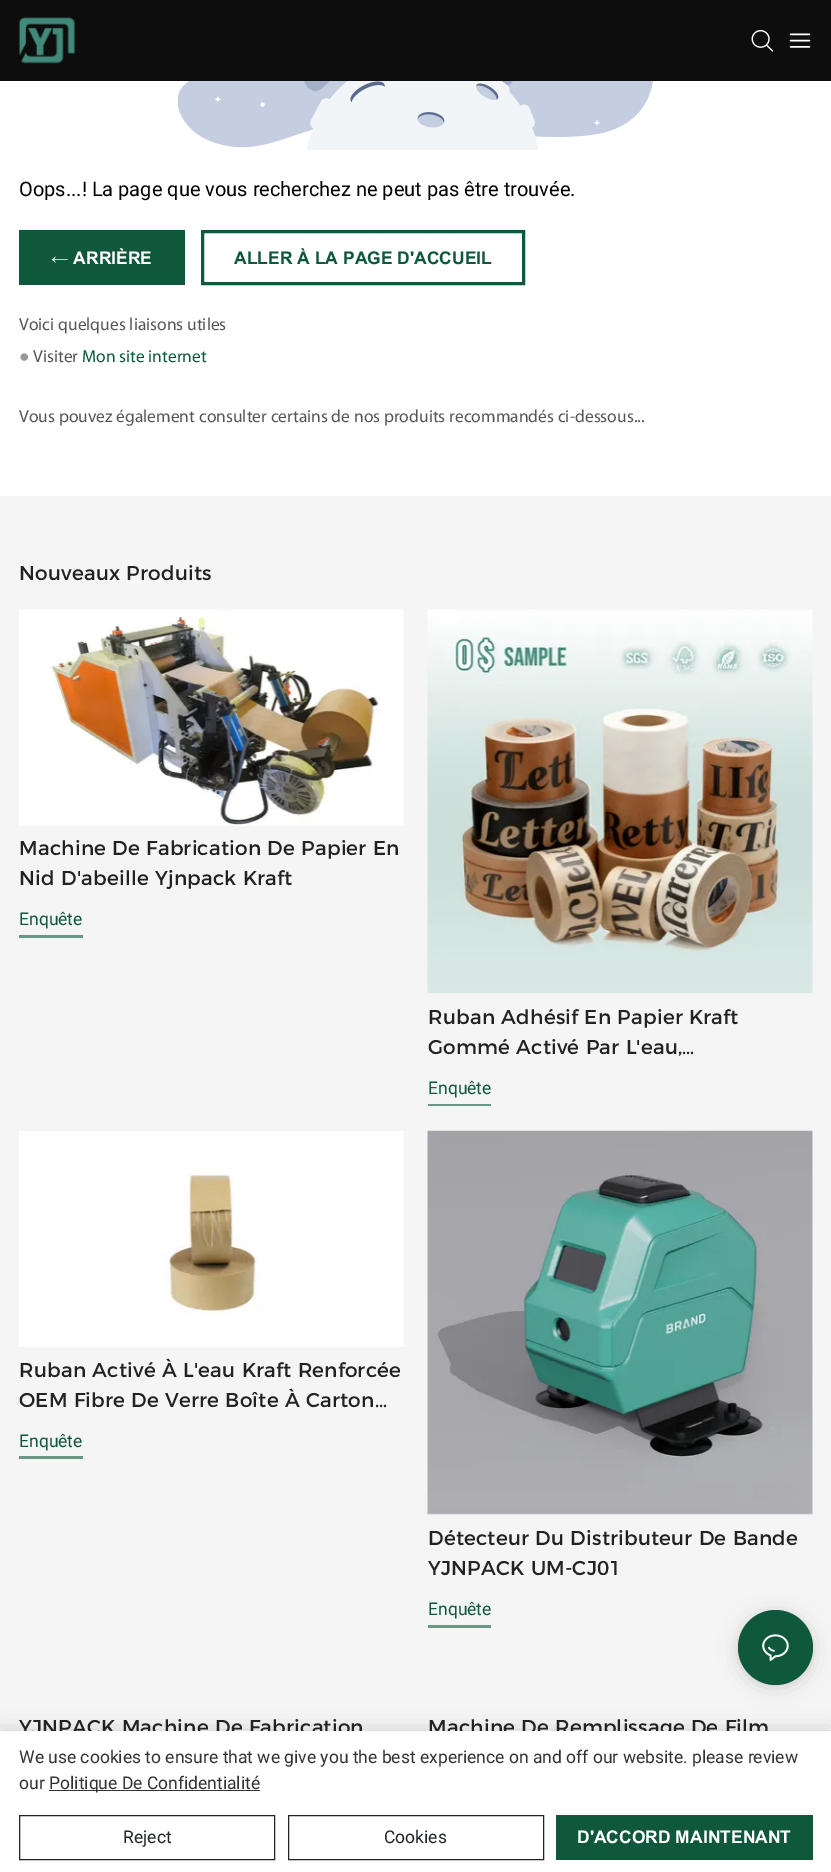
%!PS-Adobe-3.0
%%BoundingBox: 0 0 831 1872
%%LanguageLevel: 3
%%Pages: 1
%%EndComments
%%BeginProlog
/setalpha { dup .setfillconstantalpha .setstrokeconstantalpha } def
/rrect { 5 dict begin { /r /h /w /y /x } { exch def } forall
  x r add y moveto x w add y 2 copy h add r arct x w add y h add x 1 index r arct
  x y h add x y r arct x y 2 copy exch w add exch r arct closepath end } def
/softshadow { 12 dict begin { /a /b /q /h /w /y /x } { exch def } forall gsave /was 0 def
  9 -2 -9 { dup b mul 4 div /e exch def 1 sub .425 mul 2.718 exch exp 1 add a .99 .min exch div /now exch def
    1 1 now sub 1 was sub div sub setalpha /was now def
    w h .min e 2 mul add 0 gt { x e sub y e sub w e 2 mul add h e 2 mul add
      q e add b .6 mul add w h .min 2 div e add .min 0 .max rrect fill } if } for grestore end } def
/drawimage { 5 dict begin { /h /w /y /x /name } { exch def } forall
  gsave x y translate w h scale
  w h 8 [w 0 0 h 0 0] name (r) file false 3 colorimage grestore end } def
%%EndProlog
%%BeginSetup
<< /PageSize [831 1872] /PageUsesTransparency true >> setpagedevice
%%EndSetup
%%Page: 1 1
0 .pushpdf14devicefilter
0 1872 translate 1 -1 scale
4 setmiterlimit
1 setgray
0 0 831 1872 rectfill
0.051 setgray
0 0 831 81 rectfill
(images/1.raw) 18 17 57 47 drawimage
(images/2.raw) 751 30 23 22 drawimage
(images/3.raw) 789 33 22 15 drawimage
(images/4.raw) 178 81 475 69 drawimage
0.059 0.345 0.231 setrgbcolor
19 230 166 55 rectfill
3 setlinewidth
202.5 231.5 321 52 rectstroke
0.961 setgray
0 496 831 1235 rectfill
(images/5.raw) 19 609 385 217 drawimage
0.42 0.592 0.522 setrgbcolor
19 935 64 3 rectfill
(images/6.raw) 427 609 386 385 drawimage
428 1104 63 2 rectfill
(images/7.raw) 19 1131 385 216 drawimage
19 1456 64 3 rectfill
(images/8.raw) 427 1130 386 385 drawimage
428 1625 63 3 rectfill
0 setgray
738 1613 75 75 37.5 10 0.12 softshadow
738 1611 75 75 37.5 2.5 0.06 softshadow
0.059 0.345 0.231 setrgbcolor
newpath 775.5 1647.5 37.5 0 360 arc closepath fill
(images/9.raw) 762 1634 27 27 drawimage
0 setgray
0 1731 831 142 0 9.5 0.15 softshadow
/Roboto-Regular [20 0 0 -20 0 0] selectfont
19 196 moveto (Oops...! La page que vous recherchez ne peut pas être trouvée.) show
/Arial-Bold [17.5 0 0 -17.5 0 0] selectfont
1 setgray
51 264 moveto (← ARRIÈRE) show
0.059 0.345 0.231 setrgbcolor
234 264 moveto (ALLER À LA PAGE D'ACCUEIL) show
/Myriad-Regular [17.5 0 0 -17.5 0 0] selectfont
0.333 setgray
19 330 moveto (Voici quelques liaisons utiles) show
/LiberationSerif-Regular [17.5 0 0 -17.5 0 0] selectfont
0.6 setgray
19 362 moveto (●) show
/Myriad-Regular [17.5 0 0 -17.5 0 0] selectfont
0.333 setgray
33 362 moveto (Visiter) show
0.059 0.345 0.231 setrgbcolor
82 362 moveto (Mon site internet) show
0.333 setgray
19 422 moveto (Vous pouvez également consulter certains de nos produits recommandés ci-dessous...) show
/Montserrat-Regular [20 0 0 -20 0 0] selectfont
0.133 setgray
19 580 moveto 0.2 0 (Nouveaux Produits) ashow
19 855 moveto 0.2 0 (Machine De Fabrication De Papier En) ashow
19 885 moveto 0.2 0 (Nid D'abeille Yjnpack Kraft) ashow
/Roboto-Regular [17.5 0 0 -17.5 0 0] selectfont
0.059 0.345 0.231 setrgbcolor
19 925 moveto (Enquête) show
/Montserrat-Regular [20 0 0 -20 0 0] selectfont
0.133 setgray
428 1024 moveto 0.2 0 (Ruban Adhésif En Papier Kraft) ashow
428 1054 moveto 0.2 0 (Gommé Activé Par L'eau,…) ashow
/Roboto-Regular [17.5 0 0 -17.5 0 0] selectfont
0.059 0.345 0.231 setrgbcolor
428 1094 moveto (Enquête) show
/Montserrat-Regular [20 0 0 -20 0 0] selectfont
0.133 setgray
19 1377 moveto 0.2 0 (Ruban Activé À L'eau Kraft Renforcée) ashow
19 1407 moveto 0.2 0 (OEM Fibre De Verre Boîte À Carton…) ashow
/Roboto-Regular [17.5 0 0 -17.5 0 0] selectfont
0.059 0.345 0.231 setrgbcolor
19 1447 moveto (Enquête) show
/Montserrat-Regular [20 0 0 -20 0 0] selectfont
0.133 setgray
428 1545 moveto 0.2 0 (Détecteur Du Distributeur De Bande) ashow
428 1575 moveto 0.2 0 (YJNPACK UM-CJ01) ashow
/Roboto-Regular [17.5 0 0 -17.5 0 0] selectfont
0.059 0.345 0.231 setrgbcolor
428 1615 moveto (Enquête) show
/Montserrat-Regular [20 0 0 -20 0 0] selectfont
0.133 setgray
19 1734 moveto 0.2 0 (YJNPACK Machine De Fabrication) ashow
428 1734 moveto 0.2 0 (Machine De Remplissage De Film) ashow
1 setgray
0 1731 831 141 rectfill
/Roboto-Regular [17.5 0 0 -17.5 0 0] selectfont
0.2 setgray
19 1763 moveto (We use cookies to ensure that we give you the best experience on and off our website. please review) show
19 1789 moveto (our) show
49 1790 211 1 rectfill
49 1789 moveto (Politique De Confidentialité) show
0.129 0.145 0.161 setrgbcolor
1 setlinewidth
19.5 1815.5 255 44 rectstroke
123 1843 moveto (Reject) show
288.5 1815.5 255 44 rectstroke
384 1843 moveto (Cookies) show
0.059 0.345 0.231 setrgbcolor
556 1815 257 45 rectfill
/Arial-Bold [17.5 0 0 -17.5 0 0] selectfont
1 setgray
577 1843 moveto (D'ACCORD MAINTENANT) show
.poppdf14devicefilter showpage
%%EOF
